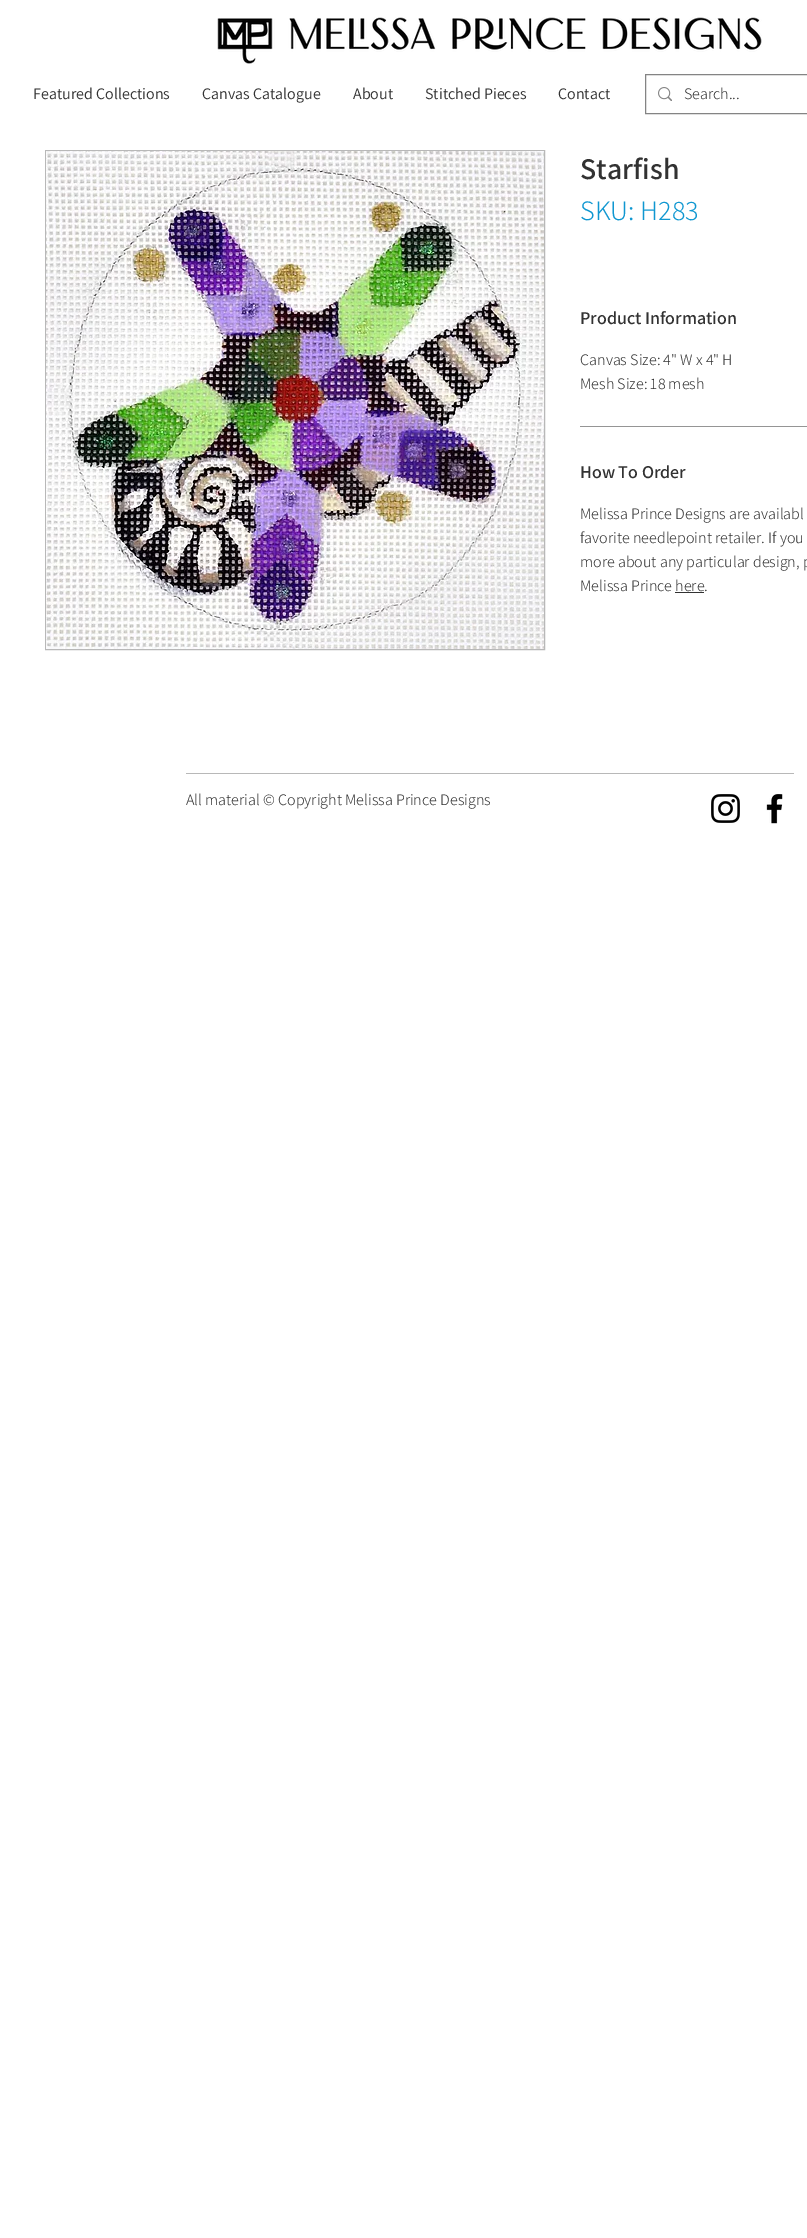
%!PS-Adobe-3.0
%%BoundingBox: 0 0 807 2238
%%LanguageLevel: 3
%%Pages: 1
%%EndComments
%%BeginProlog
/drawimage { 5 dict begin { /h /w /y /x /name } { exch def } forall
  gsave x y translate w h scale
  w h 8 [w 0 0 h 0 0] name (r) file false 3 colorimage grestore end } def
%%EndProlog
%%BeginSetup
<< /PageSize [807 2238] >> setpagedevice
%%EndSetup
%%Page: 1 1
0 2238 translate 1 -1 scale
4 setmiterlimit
1 setgray
0 0 807 2238 rectfill
(images/1.raw) 217 17 545 47 drawimage
0.518 setgray
645.5 74.5 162 39 rectstroke
(images/2.raw) 658 87 14 14 drawimage
0.722 setgray
45.5 150.5 499 499 rectstroke
(images/3.raw) 46 151 498 498 drawimage
0.584 setgray
580 426 227 1 rectfill
0.196 setgray
675 592 29 1 rectfill
0.722 setgray
186 773 608 1 rectfill
(images/4.raw) 711 794 29 29 drawimage
(images/5.raw) 766 794 17 30 drawimage
/Assistant-Regular [16 0 0 -16 0 0] selectfont
0.196 setgray
33 99 moveto (Featured Collections) show
202 99 moveto (Canvas Catalogue) show
353 99 moveto (About) show
425 99 moveto (Stitched Pieces) show
558 99 moveto (Contact) show
/Assistant-Light [16 0 0 -16 0 0] selectfont
684 99 moveto (Search...) show
/Assistant-SemiBold [30 0 0 -30 0 0] selectfont
580 179 moveto (Starfish) show
/Assistant-Light [28 0 0 -28 0 0] selectfont
0.059 0.592 0.82 setrgbcolor
580 220 moveto (SKU: H283) show
/Assistant-SemiBold [18 0 0 -18 0 0] selectfont
0.196 setgray
580 324 moveto (Product Information) show
/Assistant-Light [16 0 0 -16 0 0] selectfont
580 365 moveto (Canvas Size: 4" W x 4" H) show
580 389 moveto (Mesh Size: 18 mesh) show
/Assistant-SemiBold [18 0 0 -18 0 0] selectfont
580 478 moveto (How To Order) show
/Assistant-Light [16 0 0 -16 0 0] selectfont
580 519 moveto (Melissa Prince Designs are availabl) show
580 543 moveto (favorite needlepoint retailer. If you) show
580 567 moveto (more about any particular design, p) show
580 591 moveto (Melissa Prince here.) show
186 805 moveto (All material © Copyright Melissa Prince Designs) show
showpage
%%EOF
